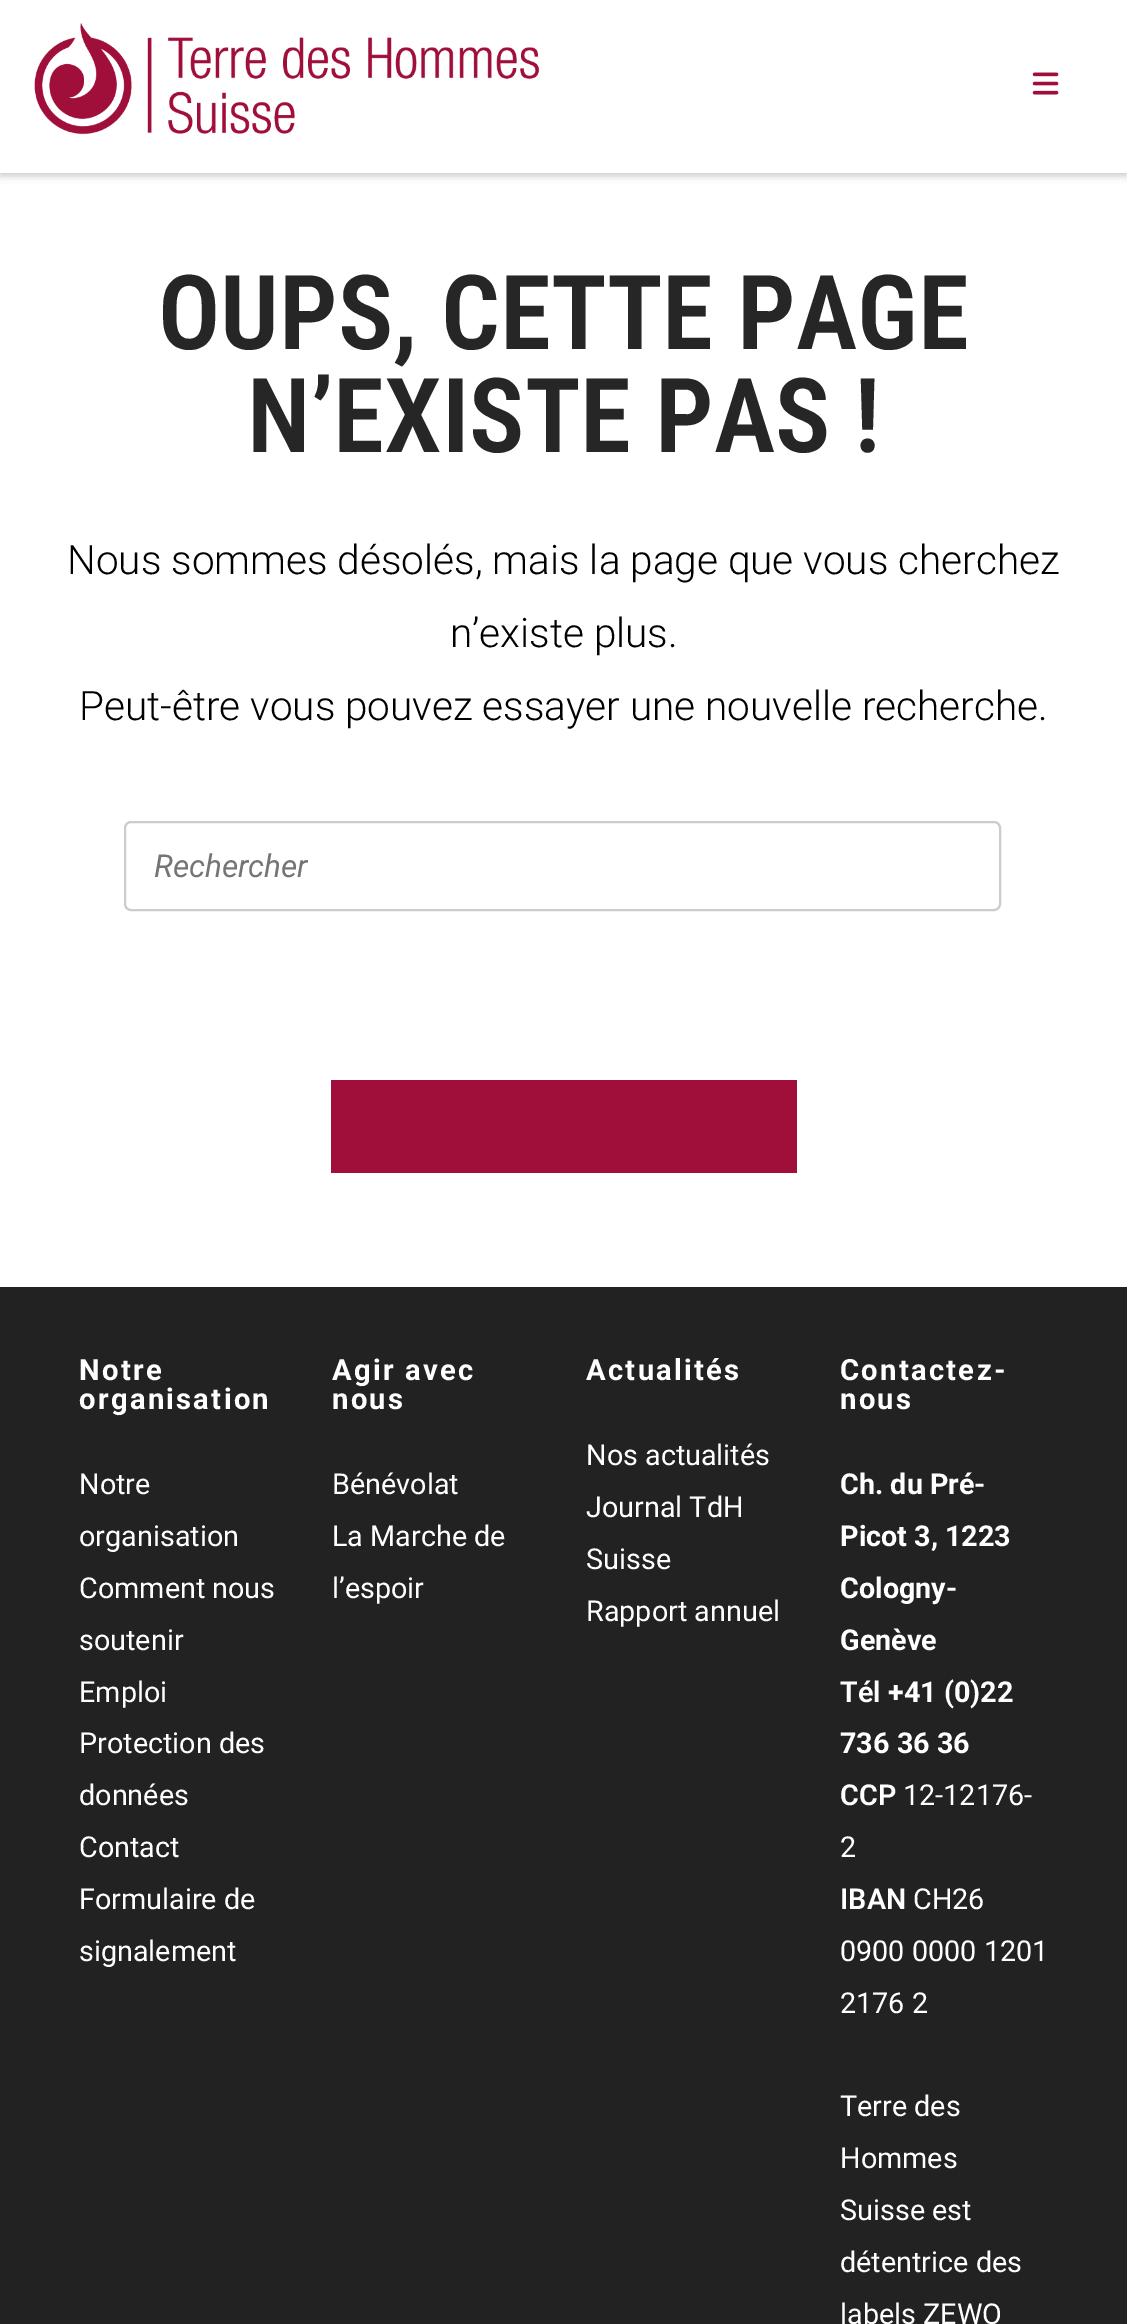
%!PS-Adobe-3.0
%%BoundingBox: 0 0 1127 2324
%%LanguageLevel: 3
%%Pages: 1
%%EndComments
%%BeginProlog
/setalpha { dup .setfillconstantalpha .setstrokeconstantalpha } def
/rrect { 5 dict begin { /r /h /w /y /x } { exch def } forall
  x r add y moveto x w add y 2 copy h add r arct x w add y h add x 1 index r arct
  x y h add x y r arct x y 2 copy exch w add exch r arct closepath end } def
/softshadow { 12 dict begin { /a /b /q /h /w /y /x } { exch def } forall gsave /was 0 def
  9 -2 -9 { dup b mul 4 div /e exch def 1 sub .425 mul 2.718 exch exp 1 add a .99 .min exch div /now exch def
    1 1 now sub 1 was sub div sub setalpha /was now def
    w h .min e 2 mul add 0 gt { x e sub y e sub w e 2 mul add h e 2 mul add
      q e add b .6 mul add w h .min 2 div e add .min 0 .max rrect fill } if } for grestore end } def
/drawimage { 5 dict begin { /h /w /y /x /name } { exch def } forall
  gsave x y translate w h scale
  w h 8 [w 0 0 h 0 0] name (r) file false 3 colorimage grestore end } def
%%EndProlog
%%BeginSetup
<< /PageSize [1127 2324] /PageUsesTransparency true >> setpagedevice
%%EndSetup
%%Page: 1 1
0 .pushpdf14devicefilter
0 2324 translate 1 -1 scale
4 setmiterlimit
1 setgray
0 0 1127 2324 rectfill
0 setgray
0 2 1127 174 0 3.5 0.2 softshadow
1 setgray
0 0 1127 173 rectfill
(images/1.raw) 34 23 506 112 drawimage
(images/2.raw) 1032 72 27 23 drawimage
0.8 setgray
2 setlinewidth
125 822 875 88 6 rrect stroke
0.624 0.059 0.227 setrgbcolor
331 1080 466 93 rectfill
0.133 setgray
0 1287 1127 1037 rectfill
/RobotoCondensed-SemiBold [103.5 0 0 -103.5 0 0] selectfont
0.149 setgray
158 349 moveto (OUPS, CETTE PAGE) show
247 452 moveto (N’EXISTE PAS !) show
/Roboto-Light [40.5 0 0 -40.5 0 0] selectfont
0 setgray
67 574 moveto (Nous sommes désolés, mais la page que vous cherchez) show
450 647 moveto (n’existe plus.) show
79 720 moveto (Peut-être vous pouvez essayer une nouvelle recherche.) show
/Roboto-Italic [31.5 0 0 -31.5 0 0] selectfont
0.459 setgray
154 877 moveto (Rechercher) show
/Roboto-Bold [29.25 0 0 -29.25 0 0] selectfont
1 setgray
79 1380 moveto 2.25 0 (Notre) ashow
79 1409 moveto 2.25 0 (organisation) ashow
/Roboto-Regular [28.75 0 0 -28.75 0 0] selectfont
79 1494 moveto (Notre) show
79 1546 moveto (organisation) show
79 1598 moveto (Comment nous) show
79 1650 moveto (soutenir) show
79 1702 moveto (Emploi) show
79 1753 moveto (Protection des) show
79 1805 moveto (données) show
79 1857 moveto (Contact) show
79 1909 moveto (Formulaire de) show
79 1961 moveto (signalement) show
/Roboto-Bold [29.25 0 0 -29.25 0 0] selectfont
332 1380 moveto 2.25 0 (Agir avec) ashow
332 1409 moveto 2.25 0 (nous) ashow
/Roboto-Regular [28.75 0 0 -28.75 0 0] selectfont
332 1494 moveto (Bénévolat) show
332 1546 moveto (La Marche de) show
332 1598 moveto (l’espoir) show
/Roboto-Bold [29.25 0 0 -29.25 0 0] selectfont
586 1380 moveto 2.25 0 (Actualités) ashow
/Roboto-Regular [28.75 0 0 -28.75 0 0] selectfont
586 1465 moveto (Nos actualités) show
586 1517 moveto (Journal TdH) show
586 1569 moveto (Suisse) show
586 1621 moveto (Rapport annuel) show
/Roboto-Bold [29.25 0 0 -29.25 0 0] selectfont
840 1380 moveto 2.25 0 (Contactez-) ashow
840 1409 moveto 2.25 0 (nous) ashow
/Roboto-Bold [28.75 0 0 -28.75 0 0] selectfont
840 1494 moveto (Ch. du Pré-) show
840 1546 moveto (Picot 3, 1223) show
840 1598 moveto (Cologny-) show
840 1650 moveto (Genève) show
/Roboto-SemiBold [28.75 0 0 -28.75 0 0] selectfont
840 1702 moveto (Tél) show
/Roboto-Bold [28.75 0 0 -28.75 0 0] selectfont
888 1702 moveto (+41 \(0\)22) show
840 1753 moveto (736 36 36) show
/Roboto-SemiBold [28.75 0 0 -28.75 0 0] selectfont
840 1805 moveto (CCP) show
/Roboto-Regular [28.75 0 0 -28.75 0 0] selectfont
903 1805 moveto (12-12176-) show
840 1857 moveto (2) show
/Roboto-SemiBold [28.75 0 0 -28.75 0 0] selectfont
840 1909 moveto (IBAN) show
/Roboto-Regular [28.75 0 0 -28.75 0 0] selectfont
913 1909 moveto (CH26) show
840 1961 moveto (0900 0000 1201) show
840 2013 moveto (2176 2) show
840 2116 moveto (Terre des) show
840 2168 moveto (Hommes) show
840 2220 moveto (Suisse est) show
840 2272 moveto (détentrice des) show
840 2324 moveto (labels ZEWO) show
.poppdf14devicefilter showpage
%%EOF
